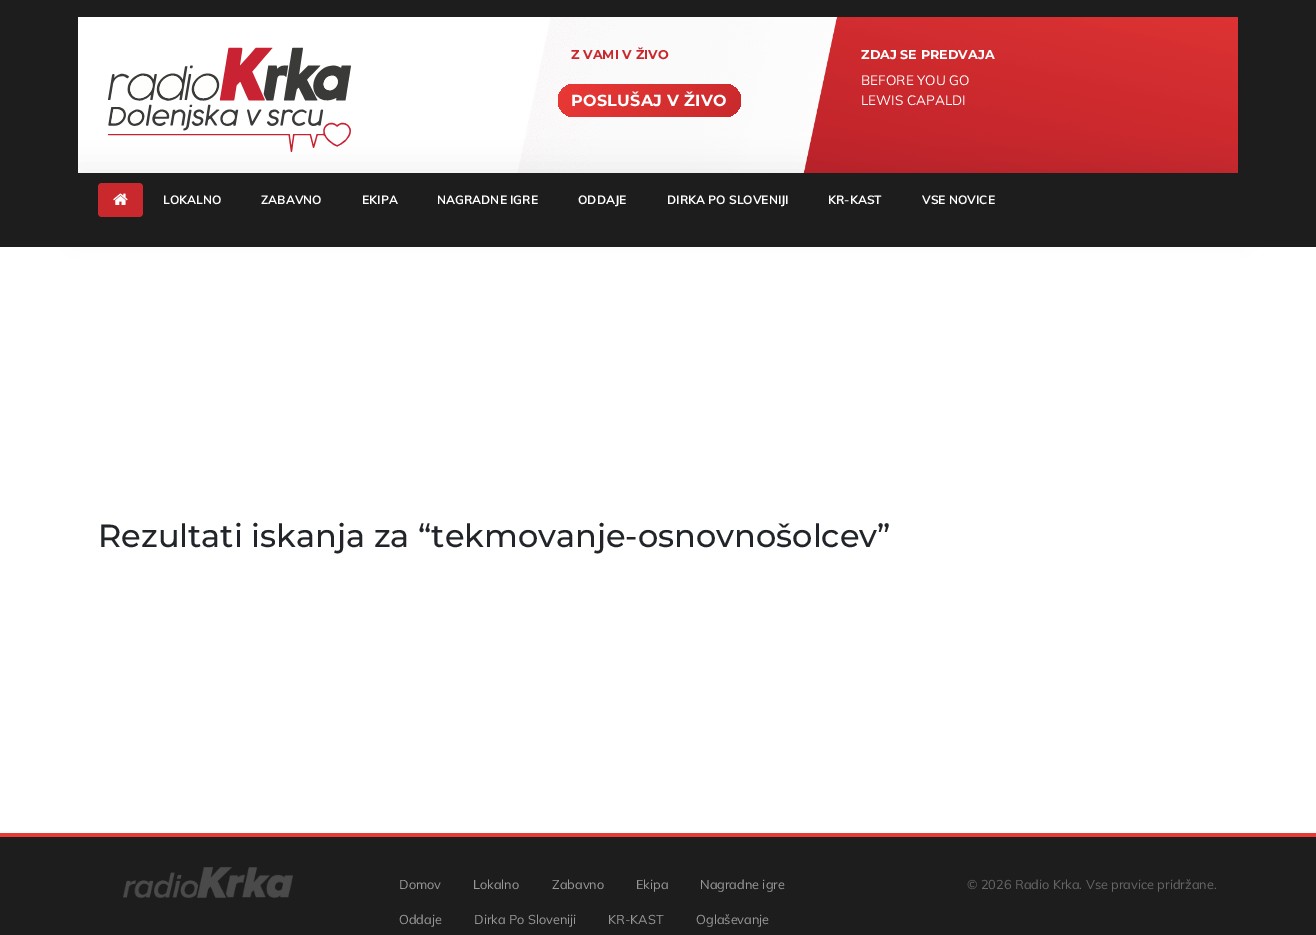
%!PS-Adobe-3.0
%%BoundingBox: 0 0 1316 935
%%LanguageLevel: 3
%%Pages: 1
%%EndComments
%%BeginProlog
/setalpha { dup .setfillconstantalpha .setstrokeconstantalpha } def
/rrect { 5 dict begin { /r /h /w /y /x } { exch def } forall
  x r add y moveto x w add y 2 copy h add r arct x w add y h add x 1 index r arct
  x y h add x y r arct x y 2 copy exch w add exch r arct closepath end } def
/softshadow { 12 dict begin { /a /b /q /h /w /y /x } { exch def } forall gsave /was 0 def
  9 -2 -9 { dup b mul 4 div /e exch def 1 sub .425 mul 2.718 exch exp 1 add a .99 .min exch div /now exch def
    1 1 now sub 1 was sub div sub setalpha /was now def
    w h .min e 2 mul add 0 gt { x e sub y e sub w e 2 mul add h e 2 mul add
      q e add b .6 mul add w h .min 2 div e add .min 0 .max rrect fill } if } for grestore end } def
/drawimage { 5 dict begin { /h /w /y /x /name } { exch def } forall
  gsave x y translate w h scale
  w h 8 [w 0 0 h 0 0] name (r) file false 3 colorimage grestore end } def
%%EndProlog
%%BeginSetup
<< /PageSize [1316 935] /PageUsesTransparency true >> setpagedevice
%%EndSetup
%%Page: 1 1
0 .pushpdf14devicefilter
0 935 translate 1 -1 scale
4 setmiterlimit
1 setgray
0 0 1316 935 rectfill
0.114 setgray
0 0 1316 247 rectfill
(images/1.raw) 78 17 1160 156 drawimage
(images/2.raw) 108 47 243 105 drawimage
gsave 558 84 183 33 16 rrect clip newpath
<< /ShadingType 2 /ColorSpace /DeviceRGB /Coords [588 49 711 152] /Extend [true true] /Function << /FunctionType 2 /Domain [0 1] /C0 [0.918 0.224 0.212] /C1 [0.788 0.161 0.176] /N 1 >> >> shfill grestore
gsave
newpath 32 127 moveto 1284 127 lineto 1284 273 lineto 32 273 lineto closepath 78 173 moveto 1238 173 lineto 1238 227 lineto 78 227 lineto closepath eoclip newpath
78 173 1160 54 0 15 0.1 softshadow
grestore
0.788 0.161 0.176 setrgbcolor
98 183 45 34 4 rrect fill
(images/3.raw) 113 193 15 12 drawimage
0.114 setgray
0 837 1316 98 rectfill
0.918 0.224 0.212 setrgbcolor
0 833 1316 4 rectfill
(images/4.raw) 123 867 170 31 drawimage
/Montserrat-Bold [12.75 0 0 -12.75 0 0] selectfont
0.788 0.161 0.176 setrgbcolor
571 59 moveto (Z VAMI V ŽIVO) show
/Montserrat-Bold [16 0 0 -16 0 0] selectfont
1 setgray
571 106 moveto 0.3 0 (POSLUŠAJ V ŽIVO) ashow
/Montserrat-Bold [12.75 0 0 -12.75 0 0] selectfont
861 59 moveto (ZDAJ SE PREDVAJA) show
/Muli-Regular [13.5 0 0 -13.5 0 0] selectfont
861 85 moveto (BEFORE YOU GO) show
861 105 moveto (LEWIS CAPALDI) show
/Muli-Bold [12 0 0 -12 0 0] selectfont
163 204 moveto (LOKALNO) show
261 204 moveto (ZABAVNO) show
362 204 moveto (EKIPA) show
437 204 moveto (NAGRADNE IGRE) show
578 204 moveto (ODDAJE) show
667 204 moveto (DIRKA PO SLOVENIJI) show
828 204 moveto (KR-KAST) show
922 204 moveto (VSE NOVICE) show
/Montserrat-Medium [32 0 0 -32 0 0] selectfont
0.129 0.145 0.161 setrgbcolor
98 547 moveto (Rezultati iskanja za “tekmovanje-osnovnošolcev”) show
/Muli-Regular [12.75 0 0 -12.75 0 0] selectfont
0.6 setgray
399 889 moveto (Domov) show
473 889 moveto (Lokalno) show
552 889 moveto (Zabavno) show
636 889 moveto (Ekipa) show
700 889 moveto (Nagradne igre) show
399 924 moveto (Oddaje) show
474 924 moveto (Dirka Po Sloveniji) show
608 924 moveto (KR-KAST) show
696 924 moveto (Oglaševanje) show
0.4 setgray
967 889 moveto (© 2026 Radio Krka. Vse pravice pridržane.) show
.poppdf14devicefilter showpage
%%EOF
